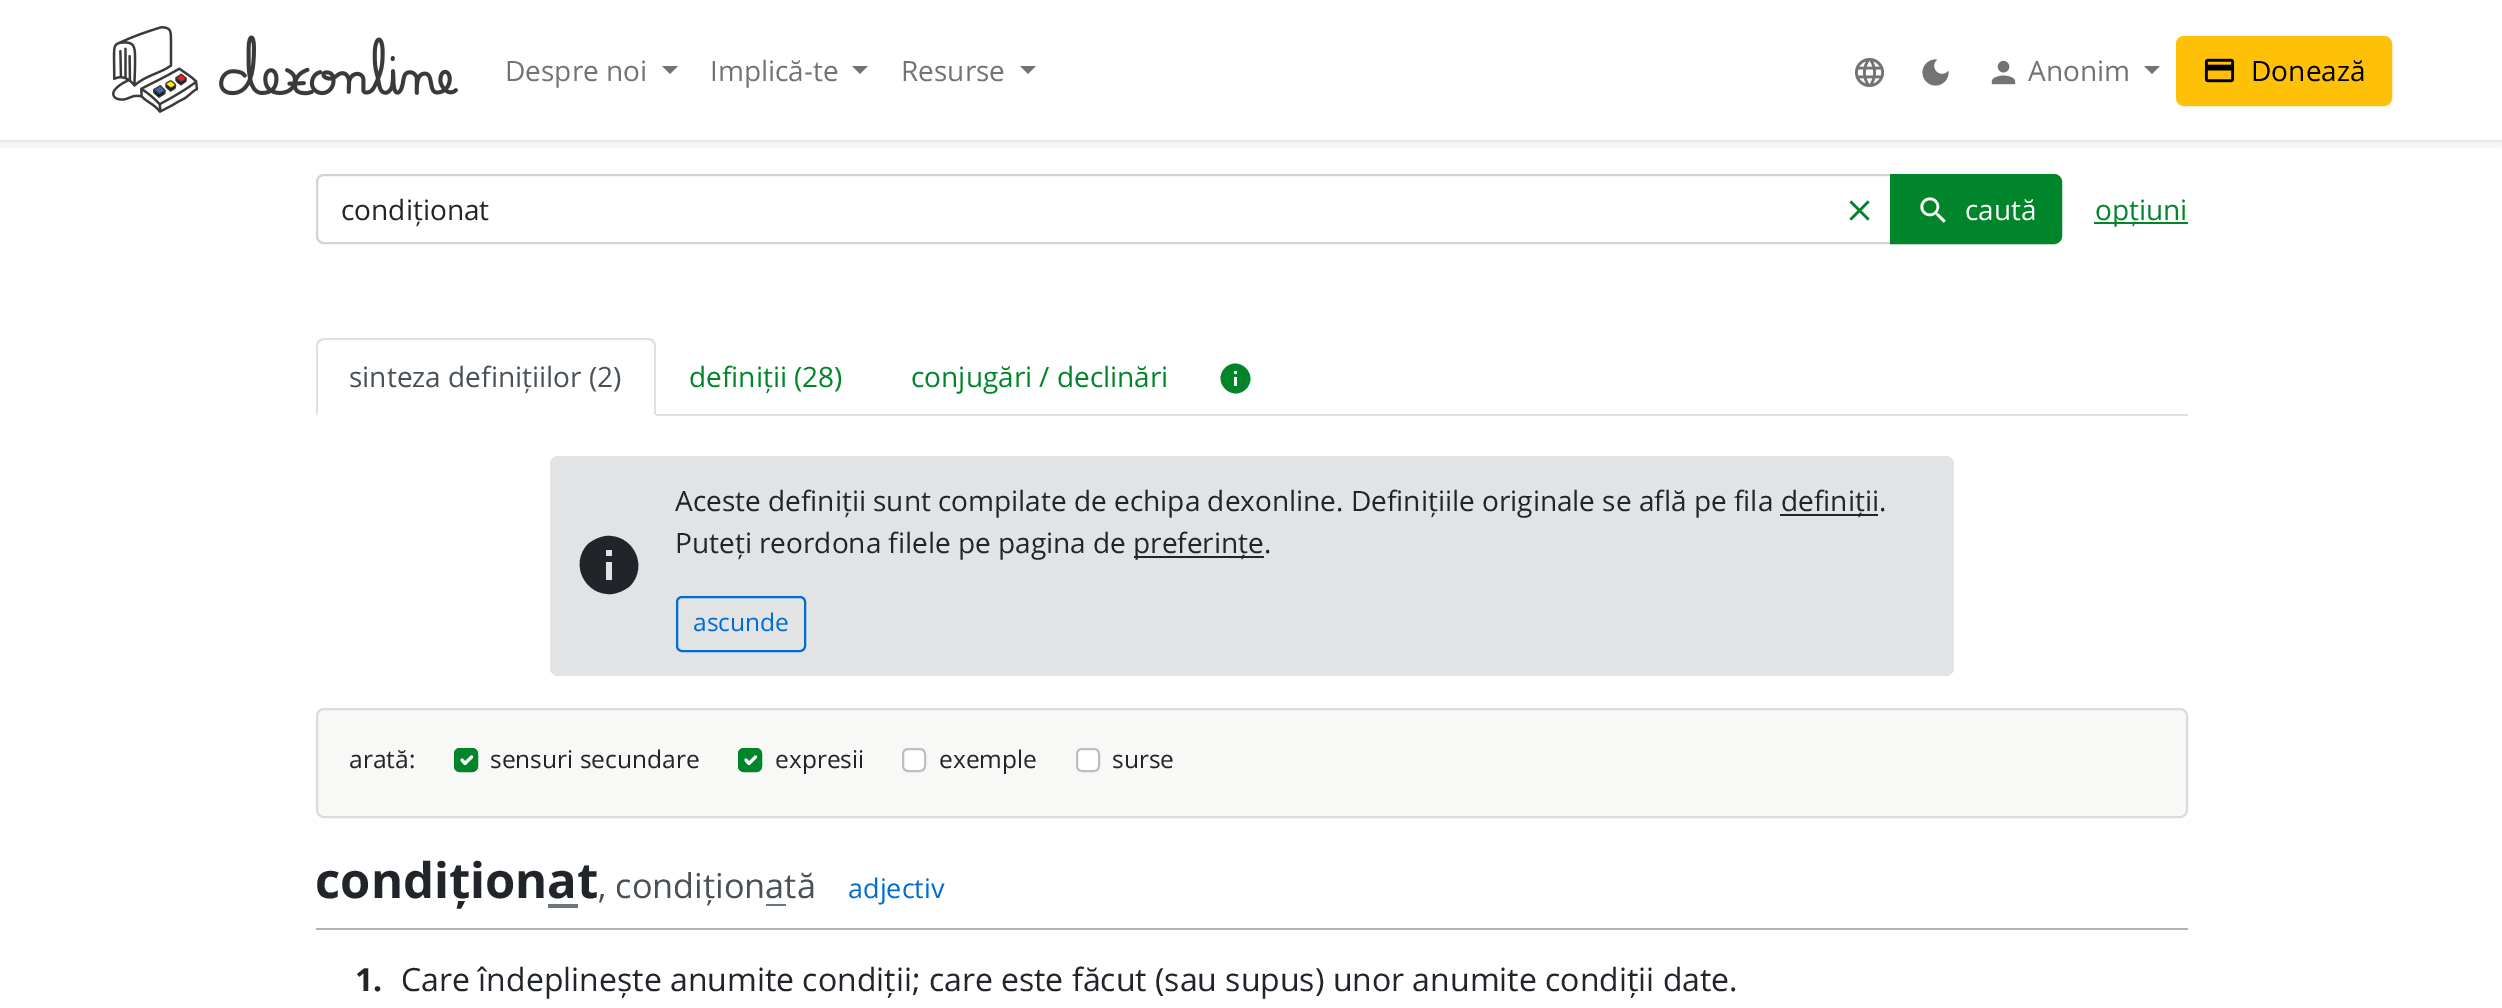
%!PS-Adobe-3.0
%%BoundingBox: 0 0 2502 1008
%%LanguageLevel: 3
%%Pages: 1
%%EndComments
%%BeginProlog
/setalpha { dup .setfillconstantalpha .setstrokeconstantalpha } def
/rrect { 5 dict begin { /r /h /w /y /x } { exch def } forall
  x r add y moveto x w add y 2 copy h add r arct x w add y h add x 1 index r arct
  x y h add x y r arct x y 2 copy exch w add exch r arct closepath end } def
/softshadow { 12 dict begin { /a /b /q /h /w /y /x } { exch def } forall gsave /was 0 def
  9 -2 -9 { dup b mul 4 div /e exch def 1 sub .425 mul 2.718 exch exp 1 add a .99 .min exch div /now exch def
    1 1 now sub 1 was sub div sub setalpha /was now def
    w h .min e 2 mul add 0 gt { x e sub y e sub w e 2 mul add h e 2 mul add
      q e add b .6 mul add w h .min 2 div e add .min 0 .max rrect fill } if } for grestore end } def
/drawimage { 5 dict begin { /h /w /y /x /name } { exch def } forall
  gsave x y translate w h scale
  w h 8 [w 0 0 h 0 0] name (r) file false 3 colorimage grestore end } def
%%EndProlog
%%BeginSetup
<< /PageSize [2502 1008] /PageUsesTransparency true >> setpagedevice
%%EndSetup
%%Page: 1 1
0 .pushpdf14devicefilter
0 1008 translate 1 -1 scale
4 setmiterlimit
1 setgray
0 0 2502 1008 rectfill
gsave
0 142 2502 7 rectclip
0 setgray
0 0 2502 142 0 8 0.1 softshadow
grestore
0.91 setgray
0 140 2502 2 rectfill
(images/1.raw) 112 26 346 87 drawimage
0.451 setgray
newpath 662 66 moveto 678 66 lineto 670 74 lineto closepath fill
newpath 852 66 moveto 868 66 lineto 860 74 lineto closepath fill
newpath 1020 66 moveto 1036 66 lineto 1028 74 lineto closepath fill
(images/2.raw) 1854 57 31 31 drawimage
(images/3.raw) 1922 59 27 27 drawimage
(images/4.raw) 1991 60 25 25 drawimage
newpath 2144 66 moveto 2160 66 lineto 2152 74 lineto closepath fill
1 0.757 0.027 setrgbcolor
2177 37 214 68 7 rrect gsave fill grestore
2 setlinewidth
stroke
(images/5.raw) 2204 58 31 25 drawimage
0.808 0.831 0.855 setrgbcolor
newpath 324 175 moveto 1895 175 lineto 1895 243 lineto 324 243 lineto 320 243 317 240 317 236 curveto 317 182 lineto 317 178 320 175 324 175 curveto closepath stroke
(images/6.raw) 1849 200 21 21 drawimage
0 0.522 0.165 setrgbcolor
newpath 1891 175 moveto 2054 175 lineto 2058 175 2061 178 2061 182 curveto 2061 236 lineto 2061 240 2058 243 2054 243 curveto 1891 243 lineto closepath gsave fill grestore
stroke
(images/7.raw) 1920 197 26 26 drawimage
2094 222 94 2 rectfill
0.871 0.886 0.902 setrgbcolor
656 414 1532 2 rectfill
newpath 324 338 moveto 322 338 320 339 318 340 curveto 320 342 lineto 323 340 lineto 648 340 lineto 650 340 651 341 652 342 curveto 654 340 lineto 652 339 650 338 648 338 curveto closepath fill
newpath 656 416 moveto 656 346 lineto 656 344 655 342 654 340 curveto 652 342 lineto 653 343 654 344 654 346 curveto 654 414 lineto closepath fill
1 setgray
newpath 656 416 moveto 654 414 lineto 318 414 lineto 316 416 lineto closepath fill
0.871 0.886 0.902 setrgbcolor
newpath 316 416 moveto 318 414 lineto 318 346 lineto 318 344 319 343 320 342 curveto 318 340 lineto 317 342 316 344 316 346 curveto closepath fill
0 0.522 0.165 setrgbcolor
newpath 1237 374 moveto 1237 371 lineto 1234 371 lineto 1234 374 lineto closepath 1237 386 moveto 1237 377 lineto 1234 377 lineto 1234 386 lineto closepath 1225 368 moveto 1239 354.5 1259.5 375 1246 389 curveto 1232 402.5 1211.5 382 1225 368 curveto closepath fill
0.886 0.89 0.898 setrgbcolor
550 456 1404 220 8 rrect fill
0.129 0.145 0.161 setrgbcolor
newpath 612 556 moveto 612 550 lineto 606 550 lineto 606 556 lineto closepath 612 580 moveto 612 562 lineto 606 562 lineto 606 580 lineto closepath 588 544 moveto 593 540 599 537 606 536 curveto 633 534 649 566 630 586 curveto 625 590 619 593 612 594 curveto 585 596 569 564 588 544 curveto closepath fill
1780 514 98 2 rectfill
1134 556 130 2 rectfill
0 0.424 0.82 setrgbcolor
677 597 128 54 5 rrect stroke
0.973 0.976 0.965 setrgbcolor
316 708 1872 110 8 rrect fill
0.12 setalpha
0 setgray
317 709 1870 108 7 rrect stroke
1 setalpha
0 0.522 0.165 setrgbcolor
454 748 24 24 6 rrect fill
1 setgray
3.1 setlinewidth
1 setlinecap
1 setlinejoin
newpath 462 760 moveto 465 763.5 lineto 471.5 757 lineto stroke
0 0.522 0.165 setrgbcolor
2 setlinewidth
0 setlinecap
0 setlinejoin
455 749 22 22 5 rrect stroke
738 748 24 24 6 rrect fill
1 setgray
3.1 setlinewidth
1 setlinecap
1 setlinejoin
newpath 746 760 moveto 749 763.5 lineto 755.5 757 lineto stroke
0 0.522 0.165 setrgbcolor
2 setlinewidth
0 setlinecap
0 setlinejoin
739 749 22 22 5 rrect stroke
1 setgray
903 749 22 22 5 rrect gsave fill grestore
0.749 setgray
stroke
1 setgray
1077 749 22 22 5 rrect gsave fill grestore
0.749 setgray
stroke
0.678 0.71 0.741 setrgbcolor
316 928 1872 2 rectfill
/OpenSans-Regular [28 0 0 -28 0 0] selectfont
0.451 setgray
505 81 moveto (Despre noi) show
710 81 moveto (Implică-te) show
901 81 moveto (Resurse) show
2028 81 moveto (Anonim) show
0 setgray
2251 81 moveto (Donează) show
0.129 0.145 0.161 setrgbcolor
341 220 moveto (condiționat) show
1 setgray
1965 220 moveto (caută) show
0 0.522 0.165 setrgbcolor
2095 220 moveto (opțiuni) show
0.286 0.314 0.341 setrgbcolor
349 387 moveto (sinteza definițiilor \(2\)) show
0 0.522 0.165 setrgbcolor
689 387 moveto (definiții \(28\)) show
911 387 moveto (conjugări / declinări) show
0.129 0.145 0.161 setrgbcolor
675 511 moveto (Aceste definiții sunt compilate de echipa dexonline. Definițiile originale se află pe fila) show
1781 511 moveto (definiții.) show
675 553 moveto (Puteți reordona filele pe pagina de) show
1133 553 moveto (preferințe.) show
/OpenSans-Regular [24.5 0 0 -24.5 0 0] selectfont
0 0.424 0.82 setrgbcolor
693 631 moveto (ascunde) show
0.129 0.145 0.161 setrgbcolor
349 768 moveto (arată:) show
490 768 moveto (sensuri secundare) show
775 768 moveto (expresii) show
939 768 moveto (exemple) show
1112 768 moveto (surse) show
/OpenSans-Bold [49 0 0 -49 0 0] selectfont
315 898 moveto (condiționat) show
/OpenSans-Regular [34.25 0 0 -34.25 0 0] selectfont
0.286 0.314 0.341 setrgbcolor
598 898 moveto (, condiționată) show
0.424 0.459 0.49 setrgbcolor
766 904 20 2 rectfill
/OpenSans-Regular [27 0 0 -27 0 0] selectfont
0 0.424 0.82 setrgbcolor
848 898 moveto (adjectiv) show
0.424 0.459 0.49 setrgbcolor
548 904 30 4 rectfill
/OpenSans-Bold [32 0 0 -32 0 0] selectfont
0.129 0.145 0.161 setrgbcolor
355 991 moveto (1.) show
/OpenSans-Regular [32 0 0 -32 0 0] selectfont
401 991 moveto (Care îndeplinește anumite condiții; care este făcut \(sau supus\) unor anumite condiții date.) show
.poppdf14devicefilter showpage
%%EOF
